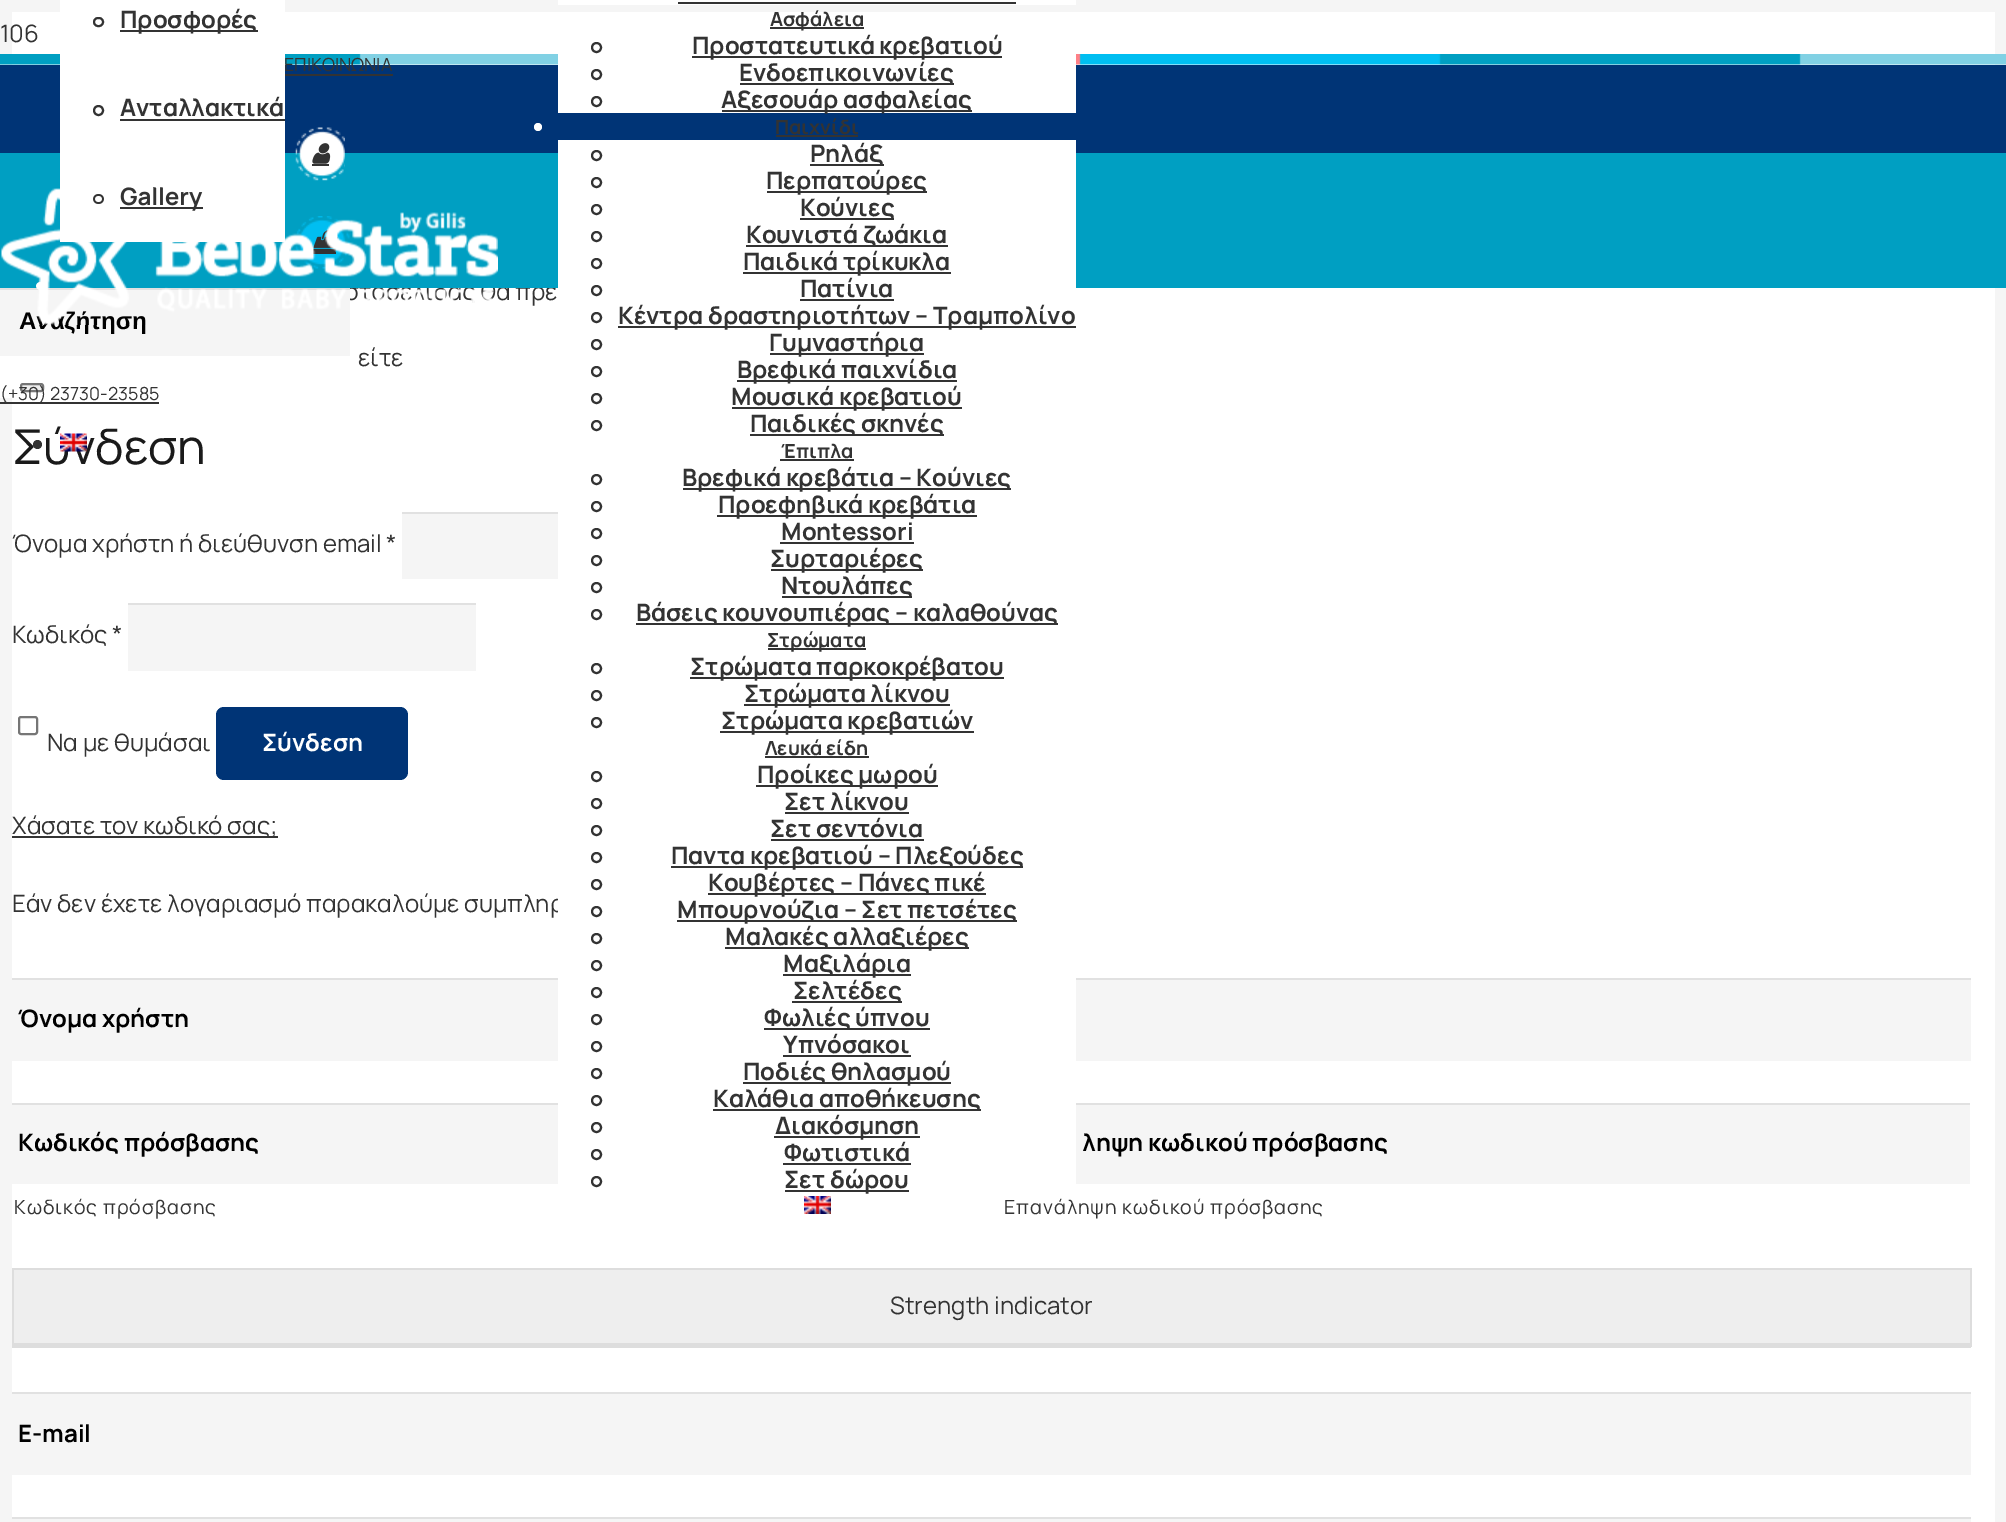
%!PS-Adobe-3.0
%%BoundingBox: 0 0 2006 1522
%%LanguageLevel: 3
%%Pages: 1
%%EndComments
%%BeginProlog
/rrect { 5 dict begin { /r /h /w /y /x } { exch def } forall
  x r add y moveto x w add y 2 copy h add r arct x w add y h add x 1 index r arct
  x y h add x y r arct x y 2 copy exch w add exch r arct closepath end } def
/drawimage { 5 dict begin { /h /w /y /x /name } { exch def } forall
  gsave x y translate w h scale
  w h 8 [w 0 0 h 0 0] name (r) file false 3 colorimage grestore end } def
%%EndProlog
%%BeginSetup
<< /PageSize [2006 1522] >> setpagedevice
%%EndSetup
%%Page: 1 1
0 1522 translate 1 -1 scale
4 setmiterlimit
0.961 setgray
0 0 2006 1522 rectfill
1 setgray
12 12 1983 1510 rectfill
0 0.204 0.463 setrgbcolor
0 65 2006 88 rectfill
0.2 setgray
0 402 159 2 rectfill
285 74 108 2 rectfill
1 setgray
558 0 518 5 rectfill
0.2 setgray
678 2 338 2 rectfill
770 27 94 2 rectfill
(images/7.raw) 0 54 2006 11 drawimage
1 setgray
558 54 518 59 rectfill
0.2 setgray
2 setlinewidth
newpath 596.5 47.5 4.5 0 360 arc closepath stroke
692 56 310 2 rectfill
newpath 596.5 74.5 4.5 0 360 arc closepath stroke
740 83 214 2 rectfill
newpath 596.5 101.5 4.5 0 360 arc closepath stroke
722 110 250 2 rectfill
1 setgray
newpath 538 127 4 0 360 arc closepath fill
0.2 setgray
776 135 82 2 rectfill
800 299 94 2 rectfill
newpath 596.5 317.5 4.5 0 360 arc closepath stroke
618 326 458 2 rectfill
newpath 596.5 344.5 4.5 0 360 arc closepath stroke
770 353 154 2 rectfill
newpath 596.5 371.5 4.5 0 360 arc closepath stroke
737 380 220 2 rectfill
newpath 596.5 398.5 4.5 0 360 arc closepath stroke
732 407 230 2 rectfill
newpath 596.5 425.5 4.5 0 360 arc closepath stroke
750 434 194 2 rectfill
780 459 74 2 rectfill
newpath 596.5 479.5 4.5 0 360 arc closepath stroke
683 488 328 2 rectfill
newpath 596.5 506.5 4.5 0 360 arc closepath stroke
717 515 260 2 rectfill
newpath 596.5 533.5 4.5 0 360 arc closepath stroke
780 542 134 2 rectfill
newpath 596.5 560.5 4.5 0 360 arc closepath stroke
771 569 152 2 rectfill
newpath 596.5 587.5 4.5 0 360 arc closepath stroke
782 596 130 2 rectfill
newpath 596.5 614.5 4.5 0 360 arc closepath stroke
636 623 422 2 rectfill
768 648 98 2 rectfill
newpath 596.5 668.5 4.5 0 360 arc closepath stroke
690 677 314 2 rectfill
newpath 596.5 695.5 4.5 0 360 arc closepath stroke
744 704 206 2 rectfill
newpath 596.5 722.5 4.5 0 360 arc closepath stroke
720 731 254 2 rectfill
765 756 104 2 rectfill
newpath 596.5 776.5 4.5 0 360 arc closepath stroke
756 785 182 2 rectfill
newpath 596.5 803.5 4.5 0 360 arc closepath stroke
785 812 124 2 rectfill
newpath 596.5 830.5 4.5 0 360 arc closepath stroke
771 839 153 2 rectfill
newpath 596.5 857.5 4.5 0 360 arc closepath stroke
671 866 352 2 rectfill
newpath 596.5 884.5 4.5 0 360 arc closepath stroke
708 893 278 2 rectfill
newpath 596.5 1073.5 4.5 0 360 arc closepath stroke
743 1082 208 2 rectfill
newpath 596.5 1100.5 4.5 0 360 arc closepath stroke
713 1109 268 2 rectfill
newpath 596.5 1127.5 4.5 0 360 arc closepath stroke
774 1136 146 2 rectfill
newpath 596.5 1154.5 4.5 0 360 arc closepath stroke
783 1163 128 2 rectfill
newpath 596.5 1181.5 4.5 0 360 arc closepath stroke
785 1190 124 2 rectfill
(images/6.raw) 804 1196 27 18 drawimage
1 setgray
0 356 12 42 rectfill
0.937 setgray
21 384 22 7 2 rrect gsave fill grestore
0.463 setgray
stroke
0.961 setgray
402 514 156 65 rectfill
0.882 setgray
402 512 156 2 rectfill
0.961 setgray
128 605 348 66 rectfill
0.882 setgray
128 603 348 2 rectfill
0.463 setgray
19 717 18 17 2 rrect stroke
0 0.204 0.463 setrgbcolor
216 707 192 73 8 rrect fill
0.2 setgray
12 836 266 2 rectfill
0.961 setgray
12 980 1959 81 rectfill
0.882 setgray
12 978 1959 2 rectfill
0.961 setgray
12 1105 546 79 rectfill
0.882 setgray
12 1103 546 2 rectfill
0.961 setgray
1076 1105 894 79 rectfill
0.882 setgray
1076 1103 894 2 rectfill
0.933 setgray
14 1270 1956 73 rectfill
0.867 setgray
12 1268 1959 2 rectfill
1970 1268 2 79 rectfill
12 1343 1959 5 rectfill
12 1268 2 79 rectfill
0.961 setgray
12 1394 1959 81 rectfill
0.882 setgray
12 1392 1959 2 rectfill
0.961 setgray
12 1519 1959 3 rectfill
0.882 setgray
12 1517 1959 2 rectfill
/Manrope-Regular [18 0 0 -18 0 0] selectfont
0.2 setgray
0 400 moveto (\(+30\) 23730-23585) show
284 71 moveto (ΕΠΙΚΟΙΝΩΝΙΑ) show
/Manrope-Bold [19.5 0 0 -19.5 0 0] selectfont
770 26 moveto (Ασφάλεια) show
/Manrope-Bold [24 0 0 -24 0 0] selectfont
692 54 moveto (Προστατευτικά κρεβατιού) show
739 81 moveto (Ενδοεπικοινωνίες) show
721 108 moveto (Αξεσουάρ ασφαλείας) show
/Manrope-Bold [19.5 0 0 -19.5 0 0] selectfont
775 134 moveto (Παιχνίδι) show
/Manrope-Bold [24 0 0 -24 0 0] selectfont
618 324 moveto (Κέντρα δραστηριοτήτων – Τραμπολίνο) show
769 351 moveto (Γυμναστήρια) show
737 378 moveto (Βρεφικά παιχνίδια) show
731 405 moveto (Μουσικά κρεβατιού) show
750 432 moveto (Παιδικές σκηνές) show
/Manrope-Bold [19.5 0 0 -19.5 0 0] selectfont
781 458 moveto (Έπιπλα) show
/Manrope-Bold [24 0 0 -24 0 0] selectfont
682 486 moveto (Βρεφικά κρεβάτια – Κούνιες) show
718 513 moveto (Προεφηβικά κρεβάτια) show
781 540 moveto (Montessori) show
770 567 moveto (Συρταριέρες) show
781 594 moveto (Ντουλάπες) show
636 621 moveto (Βάσεις κουνουπιέρας – καλαθούνας) show
/Manrope-Bold [19.5 0 0 -19.5 0 0] selectfont
767 647 moveto (Στρώματα) show
/Manrope-Bold [24 0 0 -24 0 0] selectfont
690 675 moveto (Στρώματα παρκοκρέβατου) show
744 702 moveto (Στρώματα λίκνου) show
721 729 moveto (Στρώματα κρεβατιών) show
/Manrope-Bold [19.5 0 0 -19.5 0 0] selectfont
765 755 moveto (Λευκά είδη) show
/Manrope-Bold [24 0 0 -24 0 0] selectfont
757 783 moveto (Προίκες μωρού) show
784 810 moveto (Σετ λίκνου) show
770 837 moveto (Σετ σεντόνια) show
671 864 moveto (Παντα κρεβατιού – Πλεξούδες) show
708 891 moveto (Κουβέρτες – Πάνες πικέ) show
713 1107 moveto (Καλάθια αποθήκευσης) show
775 1134 moveto (Διακόσμηση) show
784 1161 moveto (Φωτιστικά) show
784 1188 moveto (Σετ δώρου) show
/Manrope-Regular [24 0 0 -24 0 0] selectfont
0 42 moveto (106) show
344 300 moveto (στοσελιδας θα πρέ) show
0 0.624 0.761 setrgbcolor
0 153 2006 135 rectfill
1 setgray
558 140 518 148 rectfill
/Manrope-Bold [24 0 0 -24 0 0] selectfont
0.2 setgray
800 297 moveto (Πατίνια) show
newpath 596.5 290.5 4.5 0 360 arc closepath stroke
743 272 208 2 rectfill
743 270 moveto (Παιδικά τρίκυκλα) show
newpath 596.5 263.5 4.5 0 360 arc closepath stroke
746 245 202 2 rectfill
746 243 moveto (Κουνιστά ζωάκια) show
newpath 596.5 236.5 4.5 0 360 arc closepath stroke
800 218 94 2 rectfill
800 216 moveto (Κούνιες) show
newpath 596.5 209.5 4.5 0 360 arc closepath stroke
767 191 160 2 rectfill
766 189 moveto (Περπατούρες) show
newpath 596.5 182.5 4.5 0 360 arc closepath stroke
810 164 74 2 rectfill
810 162 moveto (Ρηλάξ) show
newpath 596.5 155.5 4.5 0 360 arc closepath stroke
(images/3.raw) 295 216 55 53 drawimage
312 252 24 2 rectfill
(images/4.raw) 312 230 26 24 drawimage
0.882 setgray
0 288 350 2 rectfill
1 setgray
newpath 40 286 4 0 360 arc closepath fill
60 0 225 242 rectfill
0.2 setgray
120 207 83 2 rectfill
120 205 moveto (Gallery) show
94 195 9 8 4 rrect stroke
0.961 setgray
12 290 338 66 rectfill
/LiberationSans-Bold [24 0 0 -24 0 0] selectfont
0 setgray
19 329 moveto (Αναζήτηση) show
(images/5.raw) 1 188 497 137 drawimage
(images/1.raw) 295 127 50 54 drawimage
(images/2.raw) 312 143 19 21 drawimage
0.2 setgray
312 164 17 2 rectfill
/Manrope-Bold [24 0 0 -24 0 0] selectfont
120 116 moveto (Ανταλλακτικά) show
120 119 165 2 rectfill
newpath 98.5 110.5 4.5 0 360 arc closepath stroke
120 30 138 2 rectfill
120 28 moveto (Προσφορές) show
94 18 9 8 4 rrect stroke
/Manrope-Regular [24 0 0 -24 0 0] selectfont
358 366 moveto (είτε) show
/Manrope-Regular [48 0 0 -48 0 0] selectfont
0.102 setgray
12 464 moveto (Σύνδεση) show
(images/8.raw) 60 433 27 19 drawimage
0.2 setgray
newpath 37.5 444.5 4.5 0 360 arc closepath fill
/Manrope-Regular [24 0 0 -24 0 0] selectfont
12 552 moveto (Όνομα χρήστη ή διεύθυνση email *) show
12 643 moveto (Κωδικός *) show
47 751 moveto (Να με θυμάσαι) show
/Manrope-Bold [24 0 0 -24 0 0] selectfont
1 setgray
262 751 moveto (Σύνδεση) show
/Manrope-Regular [24 0 0 -24 0 0] selectfont
0.2 setgray
12 834 moveto (Χάσατε τον κωδικό σας;) show
12 912 moveto (Εάν δεν έχετε λογαριασμό παρακαλούμε συμπληρ) show
1 setgray
558 898 518 163 rectfill
/Manrope-Bold [24 0 0 -24 0 0] selectfont
0.2 setgray
743 1080 moveto (Ποδιές θηλασμού) show
783 1053 moveto (Υπνόσακοι) show
783 1055 128 2 rectfill
newpath 596.5 1046.5 4.5 0 360 arc closepath stroke
764 1028 166 2 rectfill
764 1026 moveto (Φωλιές ύπνου) show
newpath 596.5 1019.5 4.5 0 360 arc closepath stroke
792 1001 110 2 rectfill
793 999 moveto (Σελτέδες) show
newpath 596.5 992.5 4.5 0 360 arc closepath stroke
783 974 128 2 rectfill
783 972 moveto (Μαξιλάρια) show
newpath 596.5 965.5 4.5 0 360 arc closepath stroke
725 947 244 2 rectfill
725 945 moveto (Μαλακές αλλαξιέρες) show
newpath 596.5 938.5 4.5 0 360 arc closepath stroke
677 920 340 2 rectfill
677 918 moveto (Μπουρνούζια – Σετ πετσέτες) show
newpath 596.5 911.5 4.5 0 360 arc closepath stroke
0 setgray
18 1027 moveto (Όνομα χρήστη) show
18 1151 moveto (Κωδικός πρόσβασης) show
/Manrope-Regular [19.5 0 0 -19.5 0 0] selectfont
0.2 setgray
14 1214 moveto 1 0 (Κωδικός πρόσβασης) ashow
/Manrope-Bold [24 0 0 -24 0 0] selectfont
0 setgray
1082 1151 moveto (ληψη κωδικού πρόσβασης) show
/Manrope-Regular [19.5 0 0 -19.5 0 0] selectfont
0.2 setgray
1004 1214 moveto 1 0 (Επανάληψη κωδικού πρόσβασης) ashow
/Manrope-Regular [24 0 0 -24 0 0] selectfont
890 1314 moveto (Strength indicator) show
/Manrope-Bold [24 0 0 -24 0 0] selectfont
0 setgray
18 1442 moveto (E-mail) show
showpage
%%EOF
